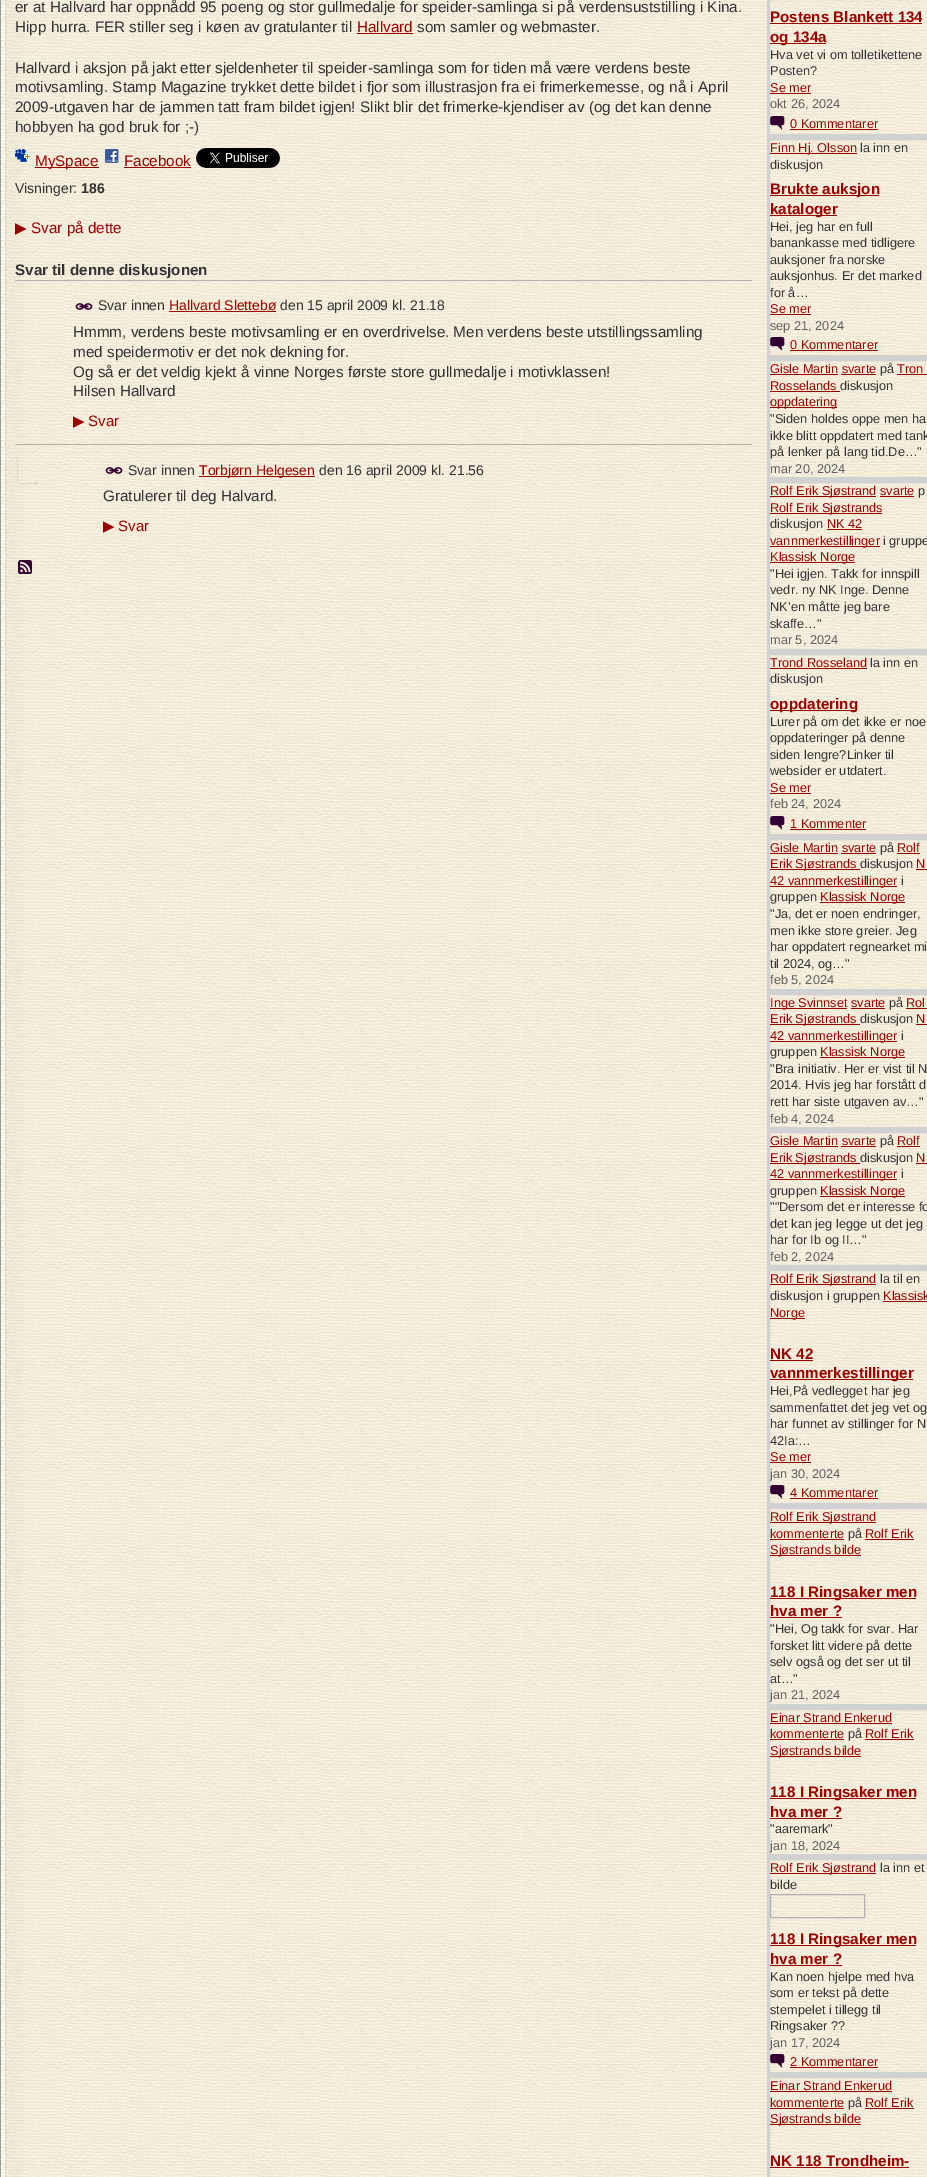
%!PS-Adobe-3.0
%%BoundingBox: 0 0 927 2177
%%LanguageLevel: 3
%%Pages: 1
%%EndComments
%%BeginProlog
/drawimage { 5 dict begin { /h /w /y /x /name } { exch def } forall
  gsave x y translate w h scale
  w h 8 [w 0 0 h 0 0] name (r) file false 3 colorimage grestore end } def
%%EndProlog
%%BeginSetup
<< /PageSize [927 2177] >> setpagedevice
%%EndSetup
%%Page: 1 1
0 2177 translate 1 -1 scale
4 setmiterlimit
1 setgray
0 0 927 2177 rectfill
(images/1.raw) 0 0 927 2177 drawimage
0.6 0 0 setrgbcolor
357 33 56 1 rectfill
(images/2.raw) 15 149 16 13 drawimage
35 167 64 1 rectfill
(images/3.raw) 105 149 14 14 drawimage
124 167 67 1 rectfill
(images/4.raw) 196 148 84 20 drawimage
0.694 setgray
15 280 737 1 rectfill
(images/5.raw) 75 303 18 7 drawimage
0.6 0 0 setrgbcolor
169 311 107 1 rectfill
(images/6.raw) 17 455 20 30 drawimage
0.694 setgray
15 444 737 1 rectfill
(images/7.raw) 105 467 18 7 drawimage
0.6 0 0 setrgbcolor
199 476 116 1 rectfill
(images/8.raw) 18 560 14 14 drawimage
0.82 setgray
3 setlinewidth
768.5 -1.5 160 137 rectstroke
0.6 0 0 setrgbcolor
770 23 152 1 rectfill
770 43 56 1 rectfill
770 93 41 1 rectfill
(images/9.raw) 770 116 15 14 drawimage
790 129 88 1 rectfill
0.82 setgray
768.5 138.5 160 218 rectstroke
0.6 0 0 setrgbcolor
770 153 87 1 rectfill
770 195 109 1 rectfill
770 215 67 1 rectfill
770 314 41 1 rectfill
(images/10.raw) 770 337 15 14 drawimage
790 350 88 1 rectfill
0.82 setgray
768.5 359.5 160 119 rectstroke
0.6 0 0 setrgbcolor
770 374 68 1 rectfill
841 374 35 1 rectfill
897 374 30 1 rectfill
770 391 70 1 rectfill
770 407 67 1 rectfill
0.82 setgray
768.5 481.5 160 169 rectstroke
0.6 0 0 setrgbcolor
770 496 106 1 rectfill
880 496 34 1 rectfill
770 513 112 1 rectfill
827 529 35 1 rectfill
770 546 110 1 rectfill
770 562 85 1 rectfill
0.82 setgray
768.5 653.5 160 182 rectstroke
0.6 0 0 setrgbcolor
770 668 97 1 rectfill
770 710 87 1 rectfill
770 793 41 1 rectfill
(images/9.raw) 770 816 15 14 drawimage
790 829 76 1 rectfill
0.82 setgray
768.5 838.5 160 152 rectstroke
0.6 0 0 setrgbcolor
770 853 68 1 rectfill
841 853 35 1 rectfill
897 853 23 1 rectfill
770 869 90 1 rectfill
916 869 11 1 rectfill
770 886 127 1 rectfill
820 902 85 1 rectfill
0.82 setgray
768.5 993.5 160 135 rectstroke
0.6 0 0 setrgbcolor
770 1008 77 1 rectfill
851 1008 34 1 rectfill
906 1008 21 1 rectfill
770 1024 90 1 rectfill
916 1024 11 1 rectfill
770 1041 127 1 rectfill
820 1057 85 1 rectfill
0.82 setgray
768.5 1131.5 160 135 rectstroke
0.6 0 0 setrgbcolor
770 1146 68 1 rectfill
841 1146 35 1 rectfill
897 1146 23 1 rectfill
770 1163 90 1 rectfill
916 1163 11 1 rectfill
770 1179 127 1 rectfill
820 1196 85 1 rectfill
0.82 setgray
768.5 1269.5 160 235 rectstroke
0.6 0 0 setrgbcolor
770 1284 106 1 rectfill
883 1301 44 1 rectfill
770 1318 35 1 rectfill
770 1360 43 1 rectfill
770 1379 143 1 rectfill
770 1462 41 1 rectfill
(images/11.raw) 770 1485 15 14 drawimage
790 1498 88 1 rectfill
0.82 setgray
768.5 1507.5 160 198 rectstroke
0.6 0 0 setrgbcolor
770 1522 106 1 rectfill
770 1539 74 1 rectfill
865 1539 49 1 rectfill
770 1555 91 1 rectfill
770 1598 146 1 rectfill
770 1617 72 1 rectfill
0.82 setgray
768.5 1708.5 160 147 rectstroke
0.6 0 0 setrgbcolor
770 1723 122 1 rectfill
770 1739 74 1 rectfill
865 1739 49 1 rectfill
770 1756 91 1 rectfill
770 1798 146 1 rectfill
770 1818 72 1 rectfill
0.82 setgray
768.5 1858.5 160 215 rectstroke
0.6 0 0 setrgbcolor
770 1873 106 1 rectfill
0.694 setgray
1 setlinewidth
770.5 1894.5 94 23 rectstroke
0.6 0 0 setrgbcolor
770 1945 146 1 rectfill
770 1965 72 1 rectfill
(images/12.raw) 770 2054 15 14 drawimage
790 2067 88 1 rectfill
0.82 setgray
3 setlinewidth
768.5 2076.5 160 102 rectstroke
0.6 0 0 setrgbcolor
770 2091 122 1 rectfill
770 2108 74 1 rectfill
865 2108 49 1 rectfill
770 2124 91 1 rectfill
770 2167 139 1 rectfill
/LiberationSans-Regular [15.25 0 0 -15.25 0 0] selectfont
0.2 setgray
15 12 moveto (er at Hallvard har oppnådd 95 poeng og stor gullmedalje for speider-samlinga si på verdensuststilling i Kina.) show
15 32 moveto (Hipp hurra. FER stiller seg i køen av gratulanter til) show
0.6 0 0 setrgbcolor
357 32 moveto (Hallvard) show
0.2 setgray
417 32 moveto (som samler og webmaster.) show
15 73 moveto (Hallvard i aksjon på jakt etter sjeldenheter til speider-samlinga som for tiden må være verdens beste) show
15 92 moveto (motivsamling. Stamp Magazine trykket dette bildet i fjor som illustrasjon fra ei frimerkemesse, og nå i April) show
15 112 moveto (2009-utgaven har de jammen tatt fram bildet igjen! Slikt blir det frimerke-kjendiser av \(og det kan denne) show
15 132 moveto (hobbyen ha god bruk for ;-\)) show
0.6 0 0 setrgbcolor
35 166 moveto (MySpace) show
124 166 moveto (Facebook) show
/LiberationSans-Regular [14 0 0 -14 0 0] selectfont
0.2 setgray
15 193 moveto (Visninger:) show
/LiberationSans-Bold [14 0 0 -14 0 0] selectfont
81 193 moveto (186) show
/DejaVuSans-Regular [15.25 0 0 -15.25 0 0] selectfont
0.6 0 0 setrgbcolor
15 233 moveto (▶) show
/LiberationSans-Regular [15.25 0 0 -15.25 0 0] selectfont
31 233 moveto (Svar på dette) show
/LiberationSans-Bold [15.2 0 0 -15.2 0 0] selectfont
0.2 setgray
15 275 moveto (Svar til denne diskusjonen) show
/LiberationSans-Regular [14 0 0 -14 0 0] selectfont
98 310 moveto (Svar innen) show
0.6 0 0 setrgbcolor
169 310 moveto (Hallvard Slettebø) show
0.2 setgray
280 310 moveto (den 15 april 2009 kl. 21.18) show
/LiberationSans-Regular [15.25 0 0 -15.25 0 0] selectfont
73 337 moveto (Hmmm, verdens beste motivsamling er en overdrivelse. Men verdens beste utstillingssamling) show
73 357 moveto (med speidermotiv er det nok dekning for.) show
73 377 moveto (Og så er det veldig kjekt å vinne Norges første store gullmedalje i motivklassen!) show
73 396 moveto (Hilsen Hallvard) show
/DejaVuSans-Regular [15 0 0 -15 0 0] selectfont
0.6 0 0 setrgbcolor
73 426 moveto (▶) show
/LiberationSans-Regular [15 0 0 -15 0 0] selectfont
88 426 moveto (Svar) show
/LiberationSans-Regular [14 0 0 -14 0 0] selectfont
0.2 setgray
128 475 moveto (Svar innen) show
0.6 0 0 setrgbcolor
199 475 moveto (Torbjørn Helgesen) show
0.2 setgray
319 475 moveto (den 16 april 2009 kl. 21.56) show
/LiberationSans-Regular [15.25 0 0 -15.25 0 0] selectfont
103 501 moveto (Gratulerer til deg Halvard.) show
/DejaVuSans-Regular [15 0 0 -15 0 0] selectfont
0.6 0 0 setrgbcolor
103 531 moveto (▶) show
/LiberationSans-Regular [15 0 0 -15 0 0] selectfont
118 531 moveto (Svar) show
/LiberationSans-Bold [15.2 0 0 -15.2 0 0] selectfont
770 22 moveto (Postens Blankett 134) show
770 42 moveto (og 134a) show
/LiberationSans-Regular [12.75 0 0 -12.75 0 0] selectfont
0.2 setgray
770 59 moveto (Hva vet vi om tolletikettene) show
770 75 moveto (Posten?) show
0.6 0 0 setrgbcolor
770 92 moveto (Se mer) show
0.373 setgray
770 108 moveto (okt 26, 2024) show
0.6 0 0 setrgbcolor
790 128 moveto (0 Kommentarer) show
770 152 moveto (Finn Hj. Olsson) show
0.2 setgray
860 152 moveto (la inn en) show
770 169 moveto (diskusjon) show
/LiberationSans-Bold [15.2 0 0 -15.2 0 0] selectfont
0.6 0 0 setrgbcolor
770 194 moveto (Brukte auksjon) show
770 214 moveto (kataloger) show
/LiberationSans-Regular [12.75 0 0 -12.75 0 0] selectfont
0.2 setgray
770 231 moveto (Hei, jeg har en full) show
770 247 moveto (banankasse med tidligere) show
770 264 moveto (auksjoner fra norske) show
770 280 moveto (auksjonhus. Er det marked) show
770 297 moveto (for å…) show
0.6 0 0 setrgbcolor
770 313 moveto (Se mer) show
0.373 setgray
770 330 moveto (sep 21, 2024) show
0.6 0 0 setrgbcolor
790 349 moveto (0 Kommentarer) show
770 373 moveto (Gisle Martin svarte) show
0.2 setgray
880 373 moveto (på) show
0.6 0 0 setrgbcolor
897 373 moveto (Tron) show
770 390 moveto (Rosselands) show
0.2 setgray
840 390 moveto (diskusjon) show
0.6 0 0 setrgbcolor
770 406 moveto (oppdatering) show
0.2 setgray
770 423 moveto ("Siden holdes oppe men ha) show
770 440 moveto (ikke blitt oppdatert med tank) show
770 456 moveto (på lenker på lang tid.De…") show
0.373 setgray
770 473 moveto (mar 20, 2024) show
0.6 0 0 setrgbcolor
770 495 moveto (Rolf Erik Sjøstrand svarte) show
0.2 setgray
918 495 moveto (p) show
0.6 0 0 setrgbcolor
770 512 moveto (Rolf Erik Sjøstrands) show
0.2 setgray
770 528 moveto (diskusjon) show
0.6 0 0 setrgbcolor
827 528 moveto (NK 42) show
770 545 moveto (vannmerkestillinger) show
0.2 setgray
883 545 moveto (i gruppe) show
0.6 0 0 setrgbcolor
770 561 moveto (Klassisk Norge) show
0.2 setgray
770 578 moveto ("Hei igjen. Takk for innspill) show
770 594 moveto (vedr. ny NK Inge. Denne) show
770 611 moveto (NK’en måtte jeg bare) show
770 628 moveto (skaffe…") show
0.373 setgray
770 644 moveto (mar 5, 2024) show
0.6 0 0 setrgbcolor
770 667 moveto (Trond Rosseland) show
0.2 setgray
870 667 moveto (la inn en) show
770 683 moveto (diskusjon) show
/LiberationSans-Bold [15.2 0 0 -15.2 0 0] selectfont
0.6 0 0 setrgbcolor
770 709 moveto (oppdatering) show
/LiberationSans-Regular [12.75 0 0 -12.75 0 0] selectfont
0.2 setgray
770 726 moveto (Lurer på om det ikke er noe) show
770 742 moveto (oppdateringer på denne) show
770 759 moveto (siden lengre?Linker til) show
770 775 moveto (websider er utdatert.) show
0.6 0 0 setrgbcolor
770 792 moveto (Se mer) show
0.373 setgray
770 808 moveto (feb 24, 2024) show
0.6 0 0 setrgbcolor
790 828 moveto (1 Kommenter) show
770 852 moveto (Gisle Martin svarte) show
0.2 setgray
880 852 moveto (på) show
0.6 0 0 setrgbcolor
897 852 moveto (Rolf) show
770 868 moveto (Erik Sjøstrands) show
0.2 setgray
860 868 moveto (diskusjon) show
0.6 0 0 setrgbcolor
916 868 moveto (N) show
770 885 moveto (42 vannmerkestillinger) show
0.2 setgray
901 885 moveto (i) show
770 901 moveto (gruppen) show
0.6 0 0 setrgbcolor
820 901 moveto (Klassisk Norge) show
0.2 setgray
770 918 moveto ("Ja, det er noen endringer,) show
770 935 moveto (men ikke store greier. Jeg) show
770 951 moveto (har oppdatert regnearket mi) show
770 968 moveto (til 2024, og…") show
0.373 setgray
770 984 moveto (feb 5, 2024) show
0.6 0 0 setrgbcolor
770 1007 moveto (Inge Svinnset svarte) show
0.2 setgray
889 1007 moveto (på) show
0.6 0 0 setrgbcolor
906 1007 moveto (Rol) show
770 1023 moveto (Erik Sjøstrands) show
0.2 setgray
860 1023 moveto (diskusjon) show
0.6 0 0 setrgbcolor
916 1023 moveto (N) show
770 1040 moveto (42 vannmerkestillinger) show
0.2 setgray
901 1040 moveto (i) show
770 1056 moveto (gruppen) show
0.6 0 0 setrgbcolor
820 1056 moveto (Klassisk Norge) show
0.2 setgray
770 1073 moveto ("Bra initiativ. Her er vist til N) show
770 1089 moveto (2014. Hvis jeg har forstått d) show
770 1106 moveto (rett har siste utgaven av…") show
0.373 setgray
770 1123 moveto (feb 4, 2024) show
0.6 0 0 setrgbcolor
770 1145 moveto (Gisle Martin svarte) show
0.2 setgray
880 1145 moveto (på) show
0.6 0 0 setrgbcolor
897 1145 moveto (Rolf) show
770 1162 moveto (Erik Sjøstrands) show
0.2 setgray
860 1162 moveto (diskusjon) show
0.6 0 0 setrgbcolor
916 1162 moveto (N) show
770 1178 moveto (42 vannmerkestillinger) show
0.2 setgray
901 1178 moveto (i) show
770 1195 moveto (gruppen) show
0.6 0 0 setrgbcolor
820 1195 moveto (Klassisk Norge) show
0.2 setgray
770 1211 moveto (""Dersom det er interesse fo) show
770 1228 moveto (det kan jeg legge ut det jeg) show
770 1244 moveto (har for Ib og II…") show
0.373 setgray
770 1261 moveto (feb 2, 2024) show
0.6 0 0 setrgbcolor
770 1283 moveto (Rolf Erik Sjøstrand) show
0.2 setgray
880 1283 moveto (la til en) show
770 1300 moveto (diskusjon i gruppen) show
0.6 0 0 setrgbcolor
883 1300 moveto (Klassisk) show
770 1317 moveto (Norge) show
/LiberationSans-Bold [15.2 0 0 -15.2 0 0] selectfont
770 1359 moveto (NK 42) show
770 1378 moveto (vannmerkestillinger) show
/LiberationSans-Regular [12.75 0 0 -12.75 0 0] selectfont
0.2 setgray
770 1395 moveto (Hei,På vedlegget har jeg) show
770 1412 moveto (sammenfattet det jeg vet og) show
770 1428 moveto (har funnet av stillinger for N) show
770 1445 moveto (42Ia:…) show
0.6 0 0 setrgbcolor
770 1461 moveto (Se mer) show
0.373 setgray
770 1478 moveto (jan 30, 2024) show
0.6 0 0 setrgbcolor
790 1497 moveto (4 Kommentarer) show
770 1521 moveto (Rolf Erik Sjøstrand) show
770 1538 moveto (kommenterte) show
0.2 setgray
848 1538 moveto (på) show
0.6 0 0 setrgbcolor
865 1538 moveto (Rolf Erik) show
770 1554 moveto (Sjøstrands bilde) show
/LiberationSans-Bold [15.2 0 0 -15.2 0 0] selectfont
770 1597 moveto (118 I Ringsaker men) show
770 1616 moveto (hva mer ?) show
/LiberationSans-Regular [12.75 0 0 -12.75 0 0] selectfont
0.2 setgray
770 1633 moveto ("Hei, Og takk for svar. Har) show
770 1650 moveto (forsket litt videre på dette) show
770 1666 moveto (selv også og det ser ut til) show
770 1683 moveto (at…") show
0.373 setgray
770 1699 moveto (jan 21, 2024) show
0.6 0 0 setrgbcolor
770 1722 moveto (Einar Strand Enkerud) show
770 1738 moveto (kommenterte) show
0.2 setgray
848 1738 moveto (på) show
0.6 0 0 setrgbcolor
865 1738 moveto (Rolf Erik) show
770 1755 moveto (Sjøstrands bilde) show
/LiberationSans-Bold [15.2 0 0 -15.2 0 0] selectfont
770 1797 moveto (118 I Ringsaker men) show
770 1817 moveto (hva mer ?) show
/LiberationSans-Regular [12.75 0 0 -12.75 0 0] selectfont
0.2 setgray
770 1833 moveto ("aaremark") show
0.373 setgray
770 1850 moveto (jan 18, 2024) show
0.6 0 0 setrgbcolor
770 1872 moveto (Rolf Erik Sjøstrand) show
0.2 setgray
880 1872 moveto (la inn et) show
770 1889 moveto (bilde) show
/LiberationSans-Bold [15.2 0 0 -15.2 0 0] selectfont
0.6 0 0 setrgbcolor
770 1944 moveto (118 I Ringsaker men) show
770 1964 moveto (hva mer ?) show
/LiberationSans-Regular [12.75 0 0 -12.75 0 0] selectfont
0.2 setgray
770 1981 moveto (Kan noen hjelpe med hva) show
770 1997 moveto (som er tekst på dette) show
770 2014 moveto (stempelet i tillegg til) show
770 2030 moveto (Ringsaker ??) show
0.373 setgray
770 2047 moveto (jan 17, 2024) show
0.6 0 0 setrgbcolor
790 2066 moveto (2 Kommentarer) show
770 2090 moveto (Einar Strand Enkerud) show
770 2107 moveto (kommenterte) show
0.2 setgray
848 2107 moveto (på) show
0.6 0 0 setrgbcolor
865 2107 moveto (Rolf Erik) show
770 2123 moveto (Sjøstrands bilde) show
/LiberationSans-Bold [15.2 0 0 -15.2 0 0] selectfont
770 2166 moveto (NK 118 Trondheim-) show
showpage
%%EOF
